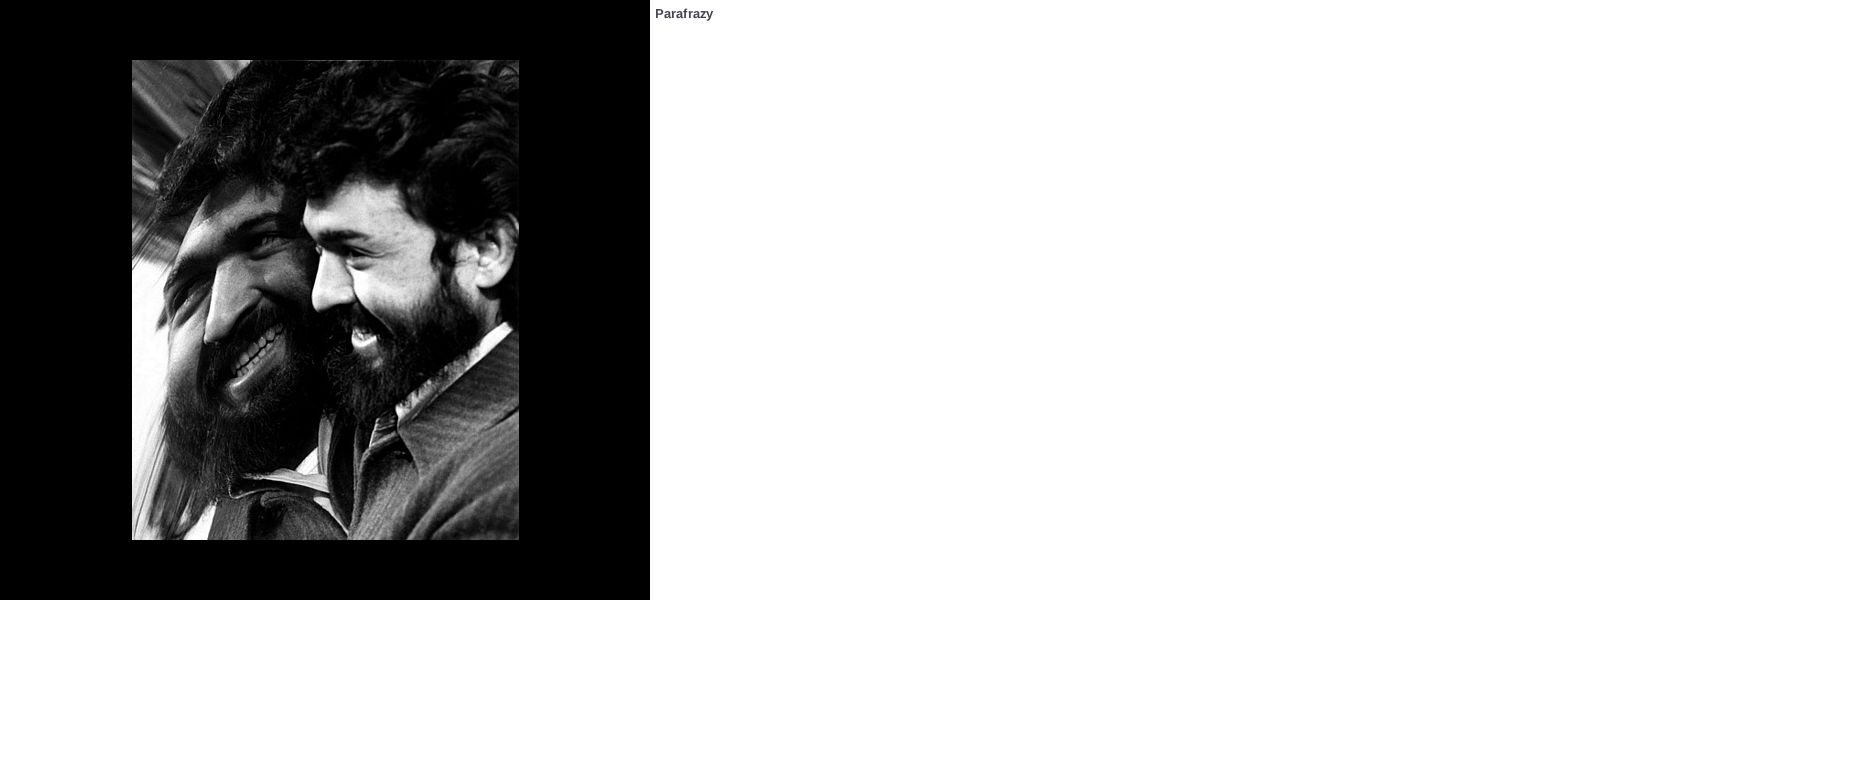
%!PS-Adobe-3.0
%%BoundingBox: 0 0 1864 762
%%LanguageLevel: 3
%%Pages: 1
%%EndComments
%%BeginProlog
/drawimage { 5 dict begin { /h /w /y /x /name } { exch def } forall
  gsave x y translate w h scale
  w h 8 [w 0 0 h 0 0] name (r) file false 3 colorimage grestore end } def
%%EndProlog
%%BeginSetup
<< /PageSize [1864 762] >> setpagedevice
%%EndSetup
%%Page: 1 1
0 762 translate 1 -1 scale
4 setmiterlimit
1 setgray
0 0 1864 762 rectfill
0 setgray
0 0 650 600 rectfill
(images/1.raw) 132 60 387 480 drawimage
/LiberationSans-Bold [13 0 0 -13 0 0] selectfont
0.267 0.267 0.333 setrgbcolor
655 18 moveto (Parafrazy) show
showpage
%%EOF
